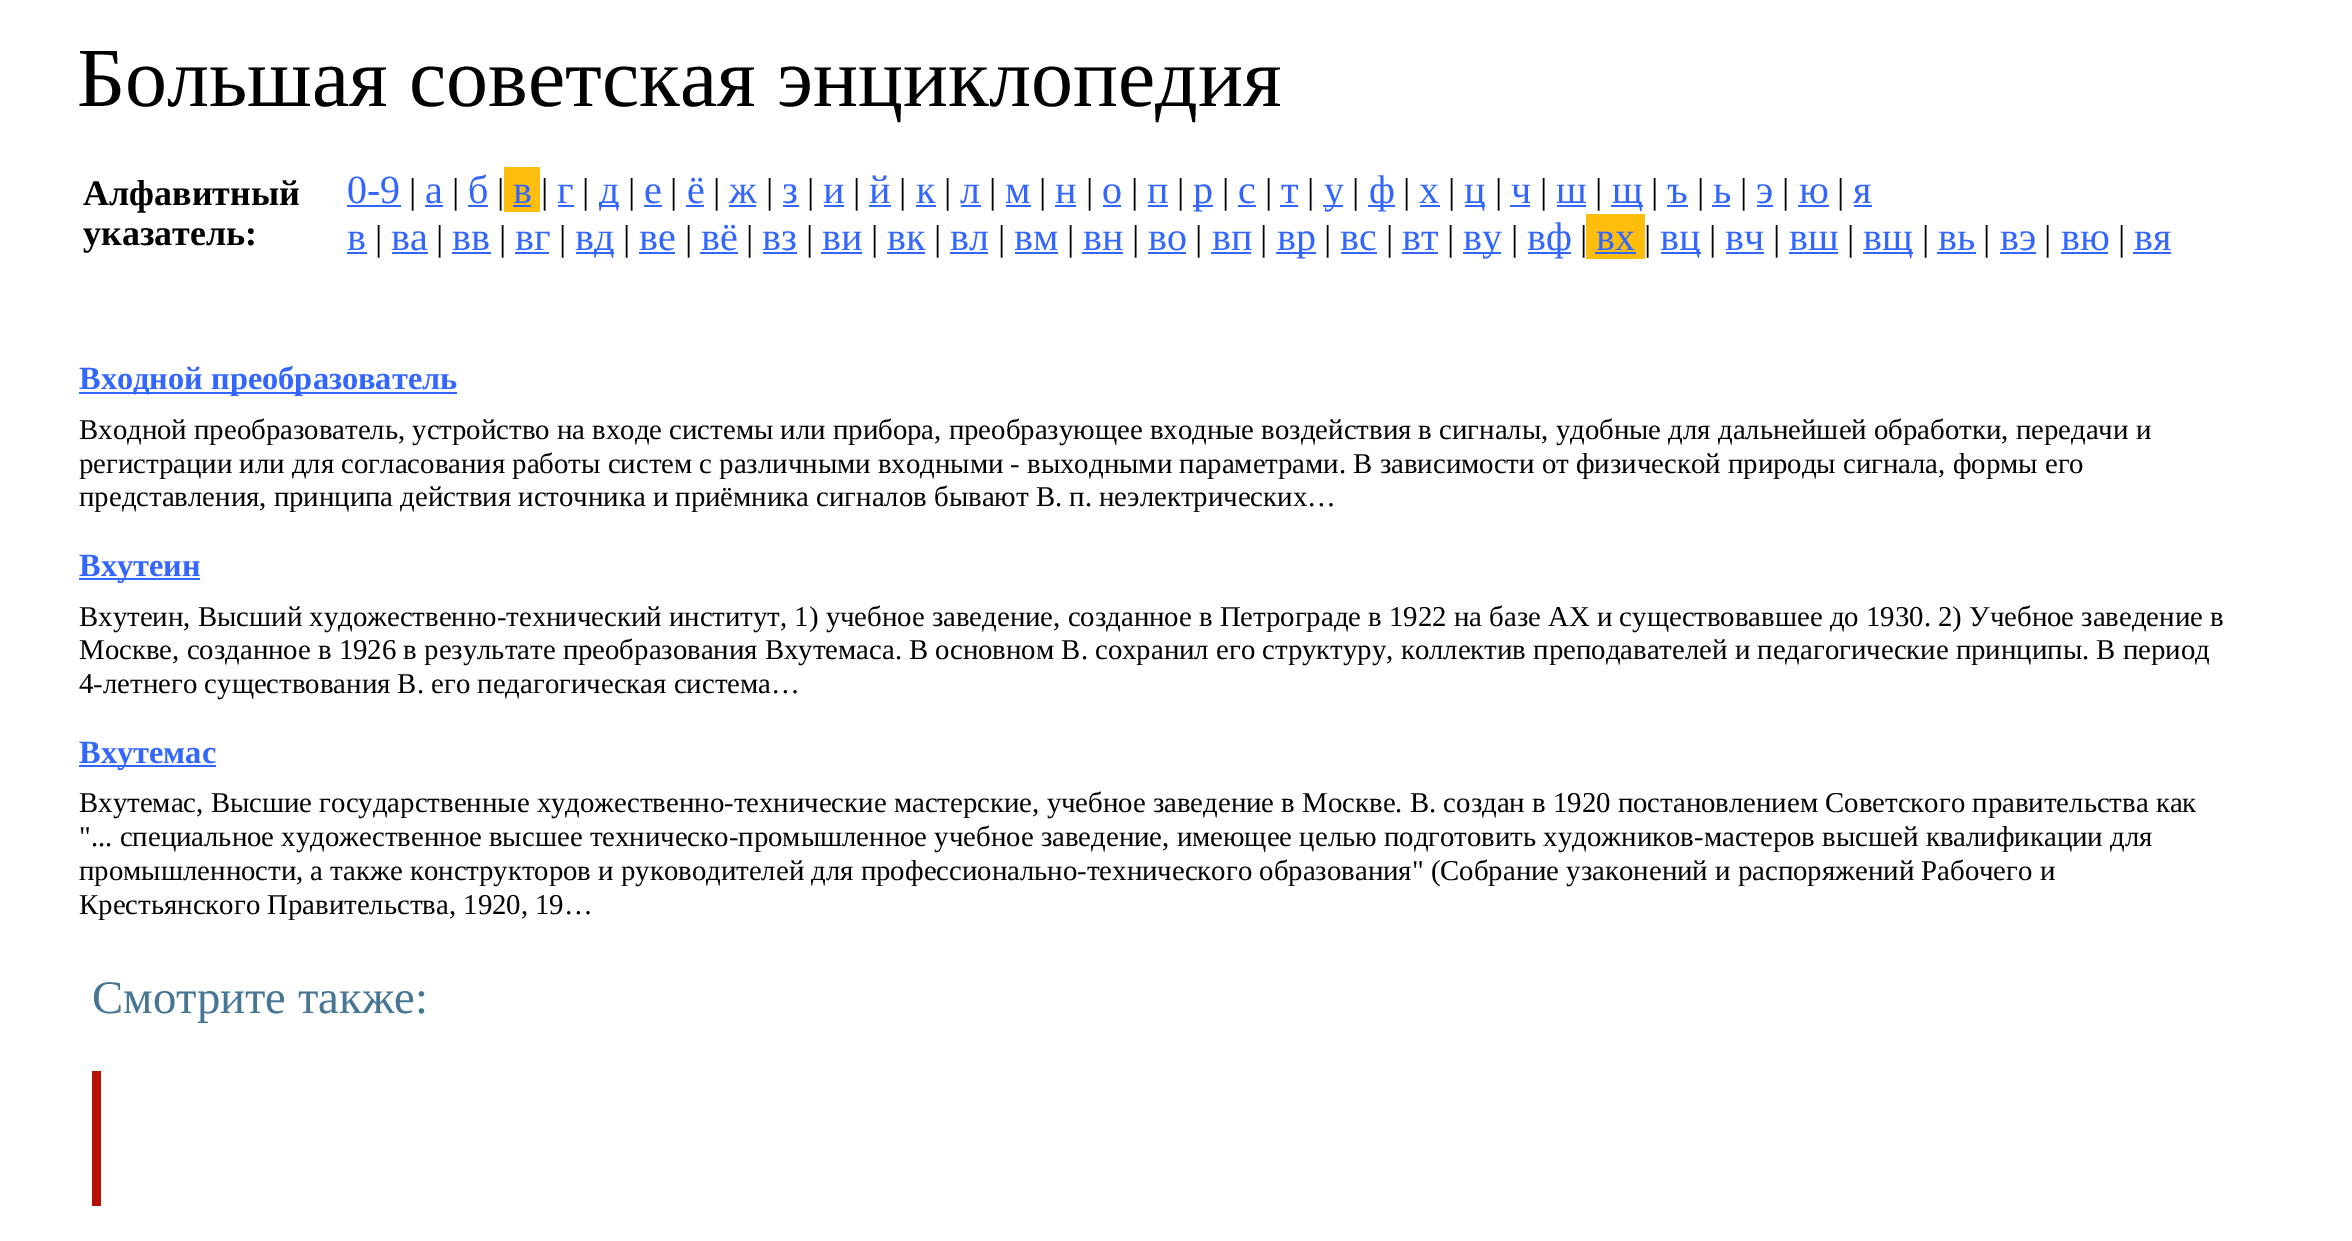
%!PS-Adobe-3.0
%%BoundingBox: 0 0 2352 1241
%%LanguageLevel: 3
%%Pages: 1
%%EndComments
%%BeginProlog
%%EndProlog
%%BeginSetup
<< /PageSize [2352 1241] >> setpagedevice
%%EndSetup
%%Page: 1 1
0 1241 translate 1 -1 scale
4 setmiterlimit
1 setgray
0 0 2352 1241 rectfill
0.2 0.4 1 setrgbcolor
347 205 54 2 rectfill
425 205 18 2 rectfill
468 205 20 2 rectfill
1 0.745 0.055 setrgbcolor
504 167 36 45 rectfill
0.2 0.4 1 setrgbcolor
513 205 18 2 rectfill
558 205 16 2 rectfill
599 205 20 2 rectfill
644 205 18 2 rectfill
686 205 18 2 rectfill
729 205 27 2 rectfill
783 205 16 2 rectfill
824 205 20 2 rectfill
869 205 22 2 rectfill
916 205 20 2 rectfill
961 205 20 2 rectfill
1006 205 25 2 rectfill
1055 205 21 2 rectfill
1103 205 18 2 rectfill
1148 205 20 2 rectfill
1193 205 20 2 rectfill
1238 205 18 2 rectfill
1280 205 18 2 rectfill
1323 205 20 2 rectfill
1368 205 27 2 rectfill
1420 205 20 2 rectfill
1465 205 20 2 rectfill
1510 205 20 2 rectfill
1557 205 29 2 rectfill
1611 205 32 2 rectfill
1667 205 21 2 rectfill
1712 205 18 2 rectfill
1757 205 16 2 rectfill
1798 205 31 2 rectfill
1854 205 18 2 rectfill
347 252 20 2 rectfill
392 252 36 2 rectfill
452 252 39 2 rectfill
515 252 34 2 rectfill
576 252 38 2 rectfill
639 252 36 2 rectfill
700 252 38 2 rectfill
763 252 34 2 rectfill
821 252 41 2 rectfill
887 252 38 2 rectfill
950 252 38 2 rectfill
1015 252 43 2 rectfill
1082 252 41 2 rectfill
1148 252 38 2 rectfill
1211 252 40 2 rectfill
1276 252 40 2 rectfill
1341 252 36 2 rectfill
1402 252 36 2 rectfill
1463 252 38 2 rectfill
1528 252 43 2 rectfill
1 0.745 0.055 setrgbcolor
1586 214 59 45 rectfill
0.2 0.4 1 setrgbcolor
1595 252 41 2 rectfill
1661 252 40 2 rectfill
1726 252 38 2 rectfill
1789 252 49 2 rectfill
1863 252 50 2 rectfill
1937 252 39 2 rectfill
2000 252 36 2 rectfill
2061 252 47 2 rectfill
2133 252 38 2 rectfill
79 392 378 2 rectfill
79 578 121 2 rectfill
79 765 137 2 rectfill
0.725 0.063 0.016 setrgbcolor
92 1071 9 135 rectfill
/LiberationSerif-Regular [84 0 0 -84 0 0] selectfont
0 setgray
77 106 moveto (Большая советская энциклопедия) show
/LiberationSerif-Bold [36 0 0 -36 0 0] selectfont
83 205 moveto (Алфавитный) show
83 245 moveto (указатель:) show
/LiberationSerif-Regular [40 0 0 -40 0 0] selectfont
0.2 0.4 1 setrgbcolor
347 203 moveto (0-9) show
/LiberationSerif-Regular [36 0 0 -36 0 0] selectfont
0 setgray
409 203 moveto (|) show
/LiberationSerif-Regular [40 0 0 -40 0 0] selectfont
0.2 0.4 1 setrgbcolor
425 203 moveto (а) show
/LiberationSerif-Regular [36 0 0 -36 0 0] selectfont
0 setgray
452 203 moveto (|) show
/LiberationSerif-Regular [40 0 0 -40 0 0] selectfont
0.2 0.4 1 setrgbcolor
468 203 moveto (б) show
/LiberationSerif-Regular [36 0 0 -36 0 0] selectfont
0 setgray
497 203 moveto (|) show
/LiberationSerif-Regular [40 0 0 -40 0 0] selectfont
0.2 0.4 1 setrgbcolor
513 203 moveto (в) show
/LiberationSerif-Regular [36 0 0 -36 0 0] selectfont
0 setgray
541 203 moveto (|) show
/LiberationSerif-Regular [40 0 0 -40 0 0] selectfont
0.2 0.4 1 setrgbcolor
557 203 moveto (г) show
/LiberationSerif-Regular [36 0 0 -36 0 0] selectfont
0 setgray
582 203 moveto (|) show
/LiberationSerif-Regular [40 0 0 -40 0 0] selectfont
0.2 0.4 1 setrgbcolor
599 203 moveto (д) show
/LiberationSerif-Regular [36 0 0 -36 0 0] selectfont
0 setgray
628 203 moveto (|) show
/LiberationSerif-Regular [40 0 0 -40 0 0] selectfont
0.2 0.4 1 setrgbcolor
644 203 moveto (е) show
/LiberationSerif-Regular [36 0 0 -36 0 0] selectfont
0 setgray
670 203 moveto (|) show
/LiberationSerif-Regular [40 0 0 -40 0 0] selectfont
0.2 0.4 1 setrgbcolor
687 203 moveto (ё) show
/LiberationSerif-Regular [36 0 0 -36 0 0] selectfont
0 setgray
713 203 moveto (|) show
/LiberationSerif-Regular [40 0 0 -40 0 0] selectfont
0.2 0.4 1 setrgbcolor
729 203 moveto (ж) show
/LiberationSerif-Regular [36 0 0 -36 0 0] selectfont
0 setgray
766 203 moveto (|) show
/LiberationSerif-Regular [40 0 0 -40 0 0] selectfont
0.2 0.4 1 setrgbcolor
782 203 moveto (з) show
/LiberationSerif-Regular [36 0 0 -36 0 0] selectfont
0 setgray
807 203 moveto (|) show
/LiberationSerif-Regular [40 0 0 -40 0 0] selectfont
0.2 0.4 1 setrgbcolor
823 203 moveto (и) show
/LiberationSerif-Regular [36 0 0 -36 0 0] selectfont
0 setgray
853 203 moveto (|) show
/LiberationSerif-Regular [40 0 0 -40 0 0] selectfont
0.2 0.4 1 setrgbcolor
869 203 moveto (й) show
/LiberationSerif-Regular [36 0 0 -36 0 0] selectfont
0 setgray
899 203 moveto (|) show
/LiberationSerif-Regular [40 0 0 -40 0 0] selectfont
0.2 0.4 1 setrgbcolor
916 203 moveto (к) show
/LiberationSerif-Regular [36 0 0 -36 0 0] selectfont
0 setgray
944 203 moveto (|) show
/LiberationSerif-Regular [40 0 0 -40 0 0] selectfont
0.2 0.4 1 setrgbcolor
960 203 moveto (л) show
/LiberationSerif-Regular [36 0 0 -36 0 0] selectfont
0 setgray
989 203 moveto (|) show
/LiberationSerif-Regular [40 0 0 -40 0 0] selectfont
0.2 0.4 1 setrgbcolor
1005 203 moveto (м) show
/LiberationSerif-Regular [36 0 0 -36 0 0] selectfont
0 setgray
1039 203 moveto (|) show
/LiberationSerif-Regular [40 0 0 -40 0 0] selectfont
0.2 0.4 1 setrgbcolor
1055 203 moveto (н) show
/LiberationSerif-Regular [36 0 0 -36 0 0] selectfont
0 setgray
1086 203 moveto (|) show
/LiberationSerif-Regular [40 0 0 -40 0 0] selectfont
0.2 0.4 1 setrgbcolor
1102 203 moveto (о) show
/LiberationSerif-Regular [36 0 0 -36 0 0] selectfont
0 setgray
1131 203 moveto (|) show
/LiberationSerif-Regular [40 0 0 -40 0 0] selectfont
0.2 0.4 1 setrgbcolor
1147 203 moveto (п) show
/LiberationSerif-Regular [36 0 0 -36 0 0] selectfont
0 setgray
1177 203 moveto (|) show
/LiberationSerif-Regular [40 0 0 -40 0 0] selectfont
0.2 0.4 1 setrgbcolor
1193 203 moveto (р) show
/LiberationSerif-Regular [36 0 0 -36 0 0] selectfont
0 setgray
1222 203 moveto (|) show
/LiberationSerif-Regular [40 0 0 -40 0 0] selectfont
0.2 0.4 1 setrgbcolor
1238 203 moveto (с) show
/LiberationSerif-Regular [36 0 0 -36 0 0] selectfont
0 setgray
1265 203 moveto (|) show
/LiberationSerif-Regular [40 0 0 -40 0 0] selectfont
0.2 0.4 1 setrgbcolor
1281 203 moveto (т) show
/LiberationSerif-Regular [36 0 0 -36 0 0] selectfont
0 setgray
1307 203 moveto (|) show
/LiberationSerif-Regular [40 0 0 -40 0 0] selectfont
0.2 0.4 1 setrgbcolor
1324 203 moveto (у) show
/LiberationSerif-Regular [36 0 0 -36 0 0] selectfont
0 setgray
1352 203 moveto (|) show
/LiberationSerif-Regular [40 0 0 -40 0 0] selectfont
0.2 0.4 1 setrgbcolor
1369 203 moveto (ф) show
/LiberationSerif-Regular [36 0 0 -36 0 0] selectfont
0 setgray
1403 203 moveto (|) show
/LiberationSerif-Regular [40 0 0 -40 0 0] selectfont
0.2 0.4 1 setrgbcolor
1419 203 moveto (х) show
/LiberationSerif-Regular [36 0 0 -36 0 0] selectfont
0 setgray
1448 203 moveto (|) show
/LiberationSerif-Regular [40 0 0 -40 0 0] selectfont
0.2 0.4 1 setrgbcolor
1464 203 moveto (ц) show
/LiberationSerif-Regular [36 0 0 -36 0 0] selectfont
0 setgray
1495 203 moveto (|) show
/LiberationSerif-Regular [40 0 0 -40 0 0] selectfont
0.2 0.4 1 setrgbcolor
1511 203 moveto (ч) show
/LiberationSerif-Regular [36 0 0 -36 0 0] selectfont
0 setgray
1540 203 moveto (|) show
/LiberationSerif-Regular [40 0 0 -40 0 0] selectfont
0.2 0.4 1 setrgbcolor
1556 203 moveto (ш) show
/LiberationSerif-Regular [36 0 0 -36 0 0] selectfont
0 setgray
1595 203 moveto (|) show
/LiberationSerif-Regular [40 0 0 -40 0 0] selectfont
0.2 0.4 1 setrgbcolor
1612 203 moveto (щ) show
/LiberationSerif-Regular [36 0 0 -36 0 0] selectfont
0 setgray
1651 203 moveto (|) show
/LiberationSerif-Regular [40 0 0 -40 0 0] selectfont
0.2 0.4 1 setrgbcolor
1667 203 moveto (ъ) show
/LiberationSerif-Regular [36 0 0 -36 0 0] selectfont
0 setgray
1697 203 moveto (|) show
/LiberationSerif-Regular [40 0 0 -40 0 0] selectfont
0.2 0.4 1 setrgbcolor
1713 203 moveto (ь) show
/LiberationSerif-Regular [36 0 0 -36 0 0] selectfont
0 setgray
1740 203 moveto (|) show
/LiberationSerif-Regular [40 0 0 -40 0 0] selectfont
0.2 0.4 1 setrgbcolor
1756 203 moveto (э) show
/LiberationSerif-Regular [36 0 0 -36 0 0] selectfont
0 setgray
1782 203 moveto (|) show
/LiberationSerif-Regular [40 0 0 -40 0 0] selectfont
0.2 0.4 1 setrgbcolor
1799 203 moveto (ю) show
/LiberationSerif-Regular [36 0 0 -36 0 0] selectfont
0 setgray
1837 203 moveto (|) show
/LiberationSerif-Regular [40 0 0 -40 0 0] selectfont
0.2 0.4 1 setrgbcolor
1853 203 moveto (я) show
347 250 moveto (в) show
/LiberationSerif-Regular [36 0 0 -36 0 0] selectfont
0 setgray
375 250 moveto (|) show
/LiberationSerif-Regular [40 0 0 -40 0 0] selectfont
0.2 0.4 1 setrgbcolor
391 250 moveto (ва) show
/LiberationSerif-Regular [36 0 0 -36 0 0] selectfont
0 setgray
436 250 moveto (|) show
/LiberationSerif-Regular [40 0 0 -40 0 0] selectfont
0.2 0.4 1 setrgbcolor
452 250 moveto (вв) show
/LiberationSerif-Regular [36 0 0 -36 0 0] selectfont
0 setgray
499 250 moveto (|) show
/LiberationSerif-Regular [40 0 0 -40 0 0] selectfont
0.2 0.4 1 setrgbcolor
515 250 moveto (вг) show
/LiberationSerif-Regular [36 0 0 -36 0 0] selectfont
0 setgray
559 250 moveto (|) show
/LiberationSerif-Regular [40 0 0 -40 0 0] selectfont
0.2 0.4 1 setrgbcolor
575 250 moveto (вд) show
/LiberationSerif-Regular [36 0 0 -36 0 0] selectfont
0 setgray
623 250 moveto (|) show
/LiberationSerif-Regular [40 0 0 -40 0 0] selectfont
0.2 0.4 1 setrgbcolor
639 250 moveto (ве) show
/LiberationSerif-Regular [36 0 0 -36 0 0] selectfont
0 setgray
685 250 moveto (|) show
/LiberationSerif-Regular [40 0 0 -40 0 0] selectfont
0.2 0.4 1 setrgbcolor
701 250 moveto (вё) show
/LiberationSerif-Regular [36 0 0 -36 0 0] selectfont
0 setgray
746 250 moveto (|) show
/LiberationSerif-Regular [40 0 0 -40 0 0] selectfont
0.2 0.4 1 setrgbcolor
762 250 moveto (вз) show
/LiberationSerif-Regular [36 0 0 -36 0 0] selectfont
0 setgray
806 250 moveto (|) show
/LiberationSerif-Regular [40 0 0 -40 0 0] selectfont
0.2 0.4 1 setrgbcolor
822 250 moveto (ви) show
/LiberationSerif-Regular [36 0 0 -36 0 0] selectfont
0 setgray
871 250 moveto (|) show
/LiberationSerif-Regular [40 0 0 -40 0 0] selectfont
0.2 0.4 1 setrgbcolor
887 250 moveto (вк) show
/LiberationSerif-Regular [36 0 0 -36 0 0] selectfont
0 setgray
934 250 moveto (|) show
/LiberationSerif-Regular [40 0 0 -40 0 0] selectfont
0.2 0.4 1 setrgbcolor
950 250 moveto (вл) show
/LiberationSerif-Regular [36 0 0 -36 0 0] selectfont
0 setgray
998 250 moveto (|) show
/LiberationSerif-Regular [40 0 0 -40 0 0] selectfont
0.2 0.4 1 setrgbcolor
1014 250 moveto (вм) show
/LiberationSerif-Regular [36 0 0 -36 0 0] selectfont
0 setgray
1067 250 moveto (|) show
/LiberationSerif-Regular [40 0 0 -40 0 0] selectfont
0.2 0.4 1 setrgbcolor
1083 250 moveto (вн) show
/LiberationSerif-Regular [36 0 0 -36 0 0] selectfont
0 setgray
1132 250 moveto (|) show
/LiberationSerif-Regular [40 0 0 -40 0 0] selectfont
0.2 0.4 1 setrgbcolor
1148 250 moveto (во) show
/LiberationSerif-Regular [36 0 0 -36 0 0] selectfont
0 setgray
1195 250 moveto (|) show
/LiberationSerif-Regular [40 0 0 -40 0 0] selectfont
0.2 0.4 1 setrgbcolor
1212 250 moveto (вп) show
/LiberationSerif-Regular [36 0 0 -36 0 0] selectfont
0 setgray
1260 250 moveto (|) show
/LiberationSerif-Regular [40 0 0 -40 0 0] selectfont
0.2 0.4 1 setrgbcolor
1277 250 moveto (вр) show
/LiberationSerif-Regular [36 0 0 -36 0 0] selectfont
0 setgray
1324 250 moveto (|) show
/LiberationSerif-Regular [40 0 0 -40 0 0] selectfont
0.2 0.4 1 setrgbcolor
1340 250 moveto (вс) show
/LiberationSerif-Regular [36 0 0 -36 0 0] selectfont
0 setgray
1386 250 moveto (|) show
/LiberationSerif-Regular [40 0 0 -40 0 0] selectfont
0.2 0.4 1 setrgbcolor
1402 250 moveto (вт) show
/LiberationSerif-Regular [36 0 0 -36 0 0] selectfont
0 setgray
1447 250 moveto (|) show
/LiberationSerif-Regular [40 0 0 -40 0 0] selectfont
0.2 0.4 1 setrgbcolor
1463 250 moveto (ву) show
/LiberationSerif-Regular [36 0 0 -36 0 0] selectfont
0 setgray
1511 250 moveto (|) show
/LiberationSerif-Regular [40 0 0 -40 0 0] selectfont
0.2 0.4 1 setrgbcolor
1527 250 moveto (вф) show
/LiberationSerif-Regular [36 0 0 -36 0 0] selectfont
0 setgray
1580 250 moveto (|) show
/LiberationSerif-Regular [40 0 0 -40 0 0] selectfont
0.2 0.4 1 setrgbcolor
1596 250 moveto (вх) show
/LiberationSerif-Regular [36 0 0 -36 0 0] selectfont
0 setgray
1644 250 moveto (|) show
/LiberationSerif-Regular [40 0 0 -40 0 0] selectfont
0.2 0.4 1 setrgbcolor
1660 250 moveto (вц) show
/LiberationSerif-Regular [36 0 0 -36 0 0] selectfont
0 setgray
1709 250 moveto (|) show
/LiberationSerif-Regular [40 0 0 -40 0 0] selectfont
0.2 0.4 1 setrgbcolor
1725 250 moveto (вч) show
/LiberationSerif-Regular [36 0 0 -36 0 0] selectfont
0 setgray
1773 250 moveto (|) show
/LiberationSerif-Regular [40 0 0 -40 0 0] selectfont
0.2 0.4 1 setrgbcolor
1789 250 moveto (вш) show
/LiberationSerif-Regular [36 0 0 -36 0 0] selectfont
0 setgray
1847 250 moveto (|) show
/LiberationSerif-Regular [40 0 0 -40 0 0] selectfont
0.2 0.4 1 setrgbcolor
1863 250 moveto (вщ) show
/LiberationSerif-Regular [36 0 0 -36 0 0] selectfont
0 setgray
1922 250 moveto (|) show
/LiberationSerif-Regular [40 0 0 -40 0 0] selectfont
0.2 0.4 1 setrgbcolor
1938 250 moveto (вь) show
/LiberationSerif-Regular [36 0 0 -36 0 0] selectfont
0 setgray
1983 250 moveto (|) show
/LiberationSerif-Regular [40 0 0 -40 0 0] selectfont
0.2 0.4 1 setrgbcolor
2000 250 moveto (вэ) show
/LiberationSerif-Regular [36 0 0 -36 0 0] selectfont
0 setgray
2044 250 moveto (|) show
/LiberationSerif-Regular [40 0 0 -40 0 0] selectfont
0.2 0.4 1 setrgbcolor
2061 250 moveto (вю) show
/LiberationSerif-Regular [36 0 0 -36 0 0] selectfont
0 setgray
2118 250 moveto (|) show
/LiberationSerif-Regular [40 0 0 -40 0 0] selectfont
0.2 0.4 1 setrgbcolor
2134 250 moveto (вя) show
/LiberationSerif-Bold [32.4 0 0 -32.4 0 0] selectfont
79 389 moveto (Входной преобразователь) show
/LiberationSerif-Regular [28.8 0 0 -28.8 0 0] selectfont
0 setgray
79 439 moveto (Входной преобразователь, устройство на входе системы или прибора, преобразующее входные воздействия в сигналы, удобные для дальнейшей обработки, передачи и) show
79 473 moveto (регистрации или для согласования работы систем с различными входными - выходными параметрами. В зависимости от физической природы сигнала, формы его) show
79 506 moveto (представления, принципа действия источника и приёмника сигналов бывают В. п. неэлектрических…) show
/LiberationSerif-Bold [32.4 0 0 -32.4 0 0] selectfont
0.2 0.4 1 setrgbcolor
79 576 moveto (Вхутеин) show
/LiberationSerif-Regular [28.8 0 0 -28.8 0 0] selectfont
0 setgray
79 626 moveto (Вхутеин, Высший художественно-технический институт, 1\) учебное заведение, созданное в Петрограде в 1922 на базе АХ и существовавшее до 1930. 2\) Учебное заведение в) show
79 659 moveto (Москве, созданное в 1926 в результате преобразования Вхутемаса. В основном В. сохранил его структуру, коллектив преподавателей и педагогические принципы. В период) show
79 693 moveto (4-летнего существования В. его педагогическая система…) show
/LiberationSerif-Bold [32.4 0 0 -32.4 0 0] selectfont
0.2 0.4 1 setrgbcolor
79 763 moveto (Вхутемас) show
/LiberationSerif-Regular [28.8 0 0 -28.8 0 0] selectfont
0 setgray
79 812 moveto (Вхутемас, Высшие государственные художественно-технические мастерские, учебное заведение в Москве. В. создан в 1920 постановлением Советского правительства как) show
79 846 moveto ("... специальное художественное высшее техническо-промышленное учебное заведение, имеющее целью подготовить художников-мастеров высшей квалификации для) show
79 880 moveto (промышленности, а также конструкторов и руководителей для профессионально-технического образования" \(Собрание узаконений и распоряжений Рабочего и) show
79 914 moveto (Крестьянского Правительства, 1920, 19…) show
/LiberationSerif-Regular [46.75 0 0 -46.75 0 0] selectfont
0.278 0.463 0.584 setrgbcolor
92 1013 moveto (Смотрите также:) show
showpage
%%EOF
